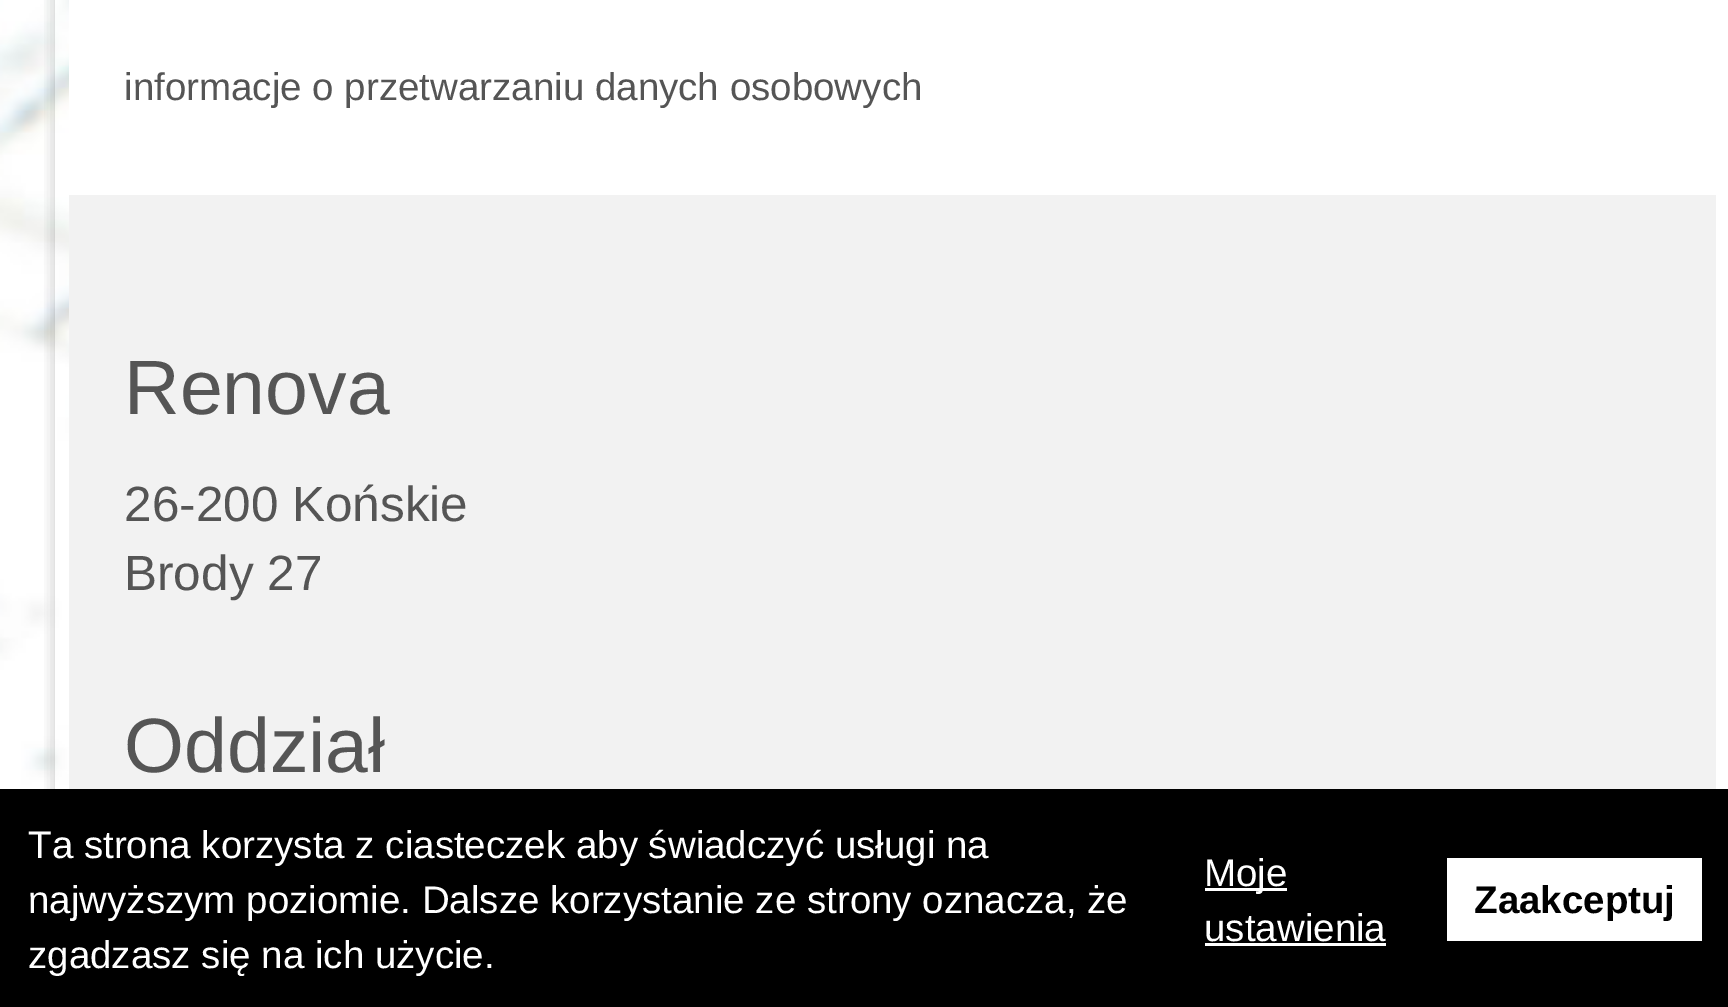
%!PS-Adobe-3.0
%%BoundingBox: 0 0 1728 1007
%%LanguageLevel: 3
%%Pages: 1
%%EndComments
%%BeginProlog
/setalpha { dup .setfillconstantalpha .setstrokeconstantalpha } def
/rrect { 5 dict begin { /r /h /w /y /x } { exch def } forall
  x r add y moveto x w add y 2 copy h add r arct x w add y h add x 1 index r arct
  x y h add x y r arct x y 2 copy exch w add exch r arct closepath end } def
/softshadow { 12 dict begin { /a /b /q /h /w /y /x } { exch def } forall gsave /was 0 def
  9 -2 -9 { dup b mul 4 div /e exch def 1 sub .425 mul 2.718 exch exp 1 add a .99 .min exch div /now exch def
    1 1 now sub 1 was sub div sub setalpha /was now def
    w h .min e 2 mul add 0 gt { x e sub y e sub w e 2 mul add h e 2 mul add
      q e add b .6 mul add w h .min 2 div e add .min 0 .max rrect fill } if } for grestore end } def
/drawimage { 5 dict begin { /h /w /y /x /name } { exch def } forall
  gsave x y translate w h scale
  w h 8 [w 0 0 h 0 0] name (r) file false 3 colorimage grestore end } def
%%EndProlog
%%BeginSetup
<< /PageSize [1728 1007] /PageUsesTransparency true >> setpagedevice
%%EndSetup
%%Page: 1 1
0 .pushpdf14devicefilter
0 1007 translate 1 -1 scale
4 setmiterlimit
1 setgray
0 0 1728 1007 rectfill
(images/1.raw) 0 0 69 789 drawimage
gsave
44 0 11 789 rectclip
0 setgray
52 -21 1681 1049 0 7 0.16 softshadow
grestore
0.949 setgray
69 195 1647 594 rectfill
0 setgray
0 789 1728 218 rectfill
1 setgray
1205 888 82 3 rectfill
1205 943 181 3 rectfill
1447 858 255 83 rectfill
/LiberationSans-Regular [38.5 0 0 -38.5 0 0] selectfont
0.333 setgray
124 100 moveto (informacje o przetwarzaniu danych osobowych) show
/Arimo-Regular [77 0 0 -77 0 0] selectfont
124 414 moveto (Renova) show
/Arimo-Regular [49.5 0 0 -49.5 0 0] selectfont
124 521 moveto (26-200 Końskie) show
124 590 moveto (Brody 27) show
/Arimo-Regular [77 0 0 -77 0 0] selectfont
124 772 moveto (Oddział) show
/LiberationSans-Regular [38.5 0 0 -38.5 0 0] selectfont
1 setgray
28 858 moveto (Ta strona korzysta z ciasteczek aby świadczyć usługi na) show
28 913 moveto (najwyższym poziomie. Dalsze korzystanie ze strony oznacza, że) show
28 968 moveto (zgadzasz się na ich użycie.) show
1204 886 moveto (Moje) show
1204 941 moveto (ustawienia) show
/LiberationSans-Bold [38.5 0 0 -38.5 0 0] selectfont
0 setgray
1474 913 moveto (Zaakceptuj) show
.poppdf14devicefilter showpage
%%EOF
